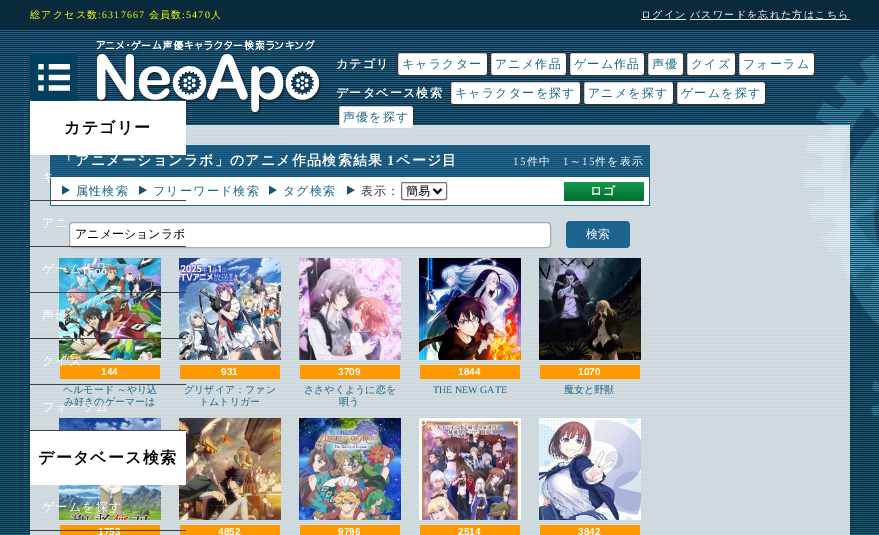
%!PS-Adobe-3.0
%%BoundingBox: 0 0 879 535
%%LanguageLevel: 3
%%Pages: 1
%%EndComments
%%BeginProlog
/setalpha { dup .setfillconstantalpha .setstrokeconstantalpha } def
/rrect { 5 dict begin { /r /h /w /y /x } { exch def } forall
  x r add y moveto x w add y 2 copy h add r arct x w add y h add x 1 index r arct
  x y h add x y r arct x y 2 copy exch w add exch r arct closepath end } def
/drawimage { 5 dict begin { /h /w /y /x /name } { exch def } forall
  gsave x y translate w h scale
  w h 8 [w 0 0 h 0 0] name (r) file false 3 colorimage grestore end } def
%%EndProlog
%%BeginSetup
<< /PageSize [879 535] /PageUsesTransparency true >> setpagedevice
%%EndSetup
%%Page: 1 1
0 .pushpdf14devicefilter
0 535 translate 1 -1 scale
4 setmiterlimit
1 setgray
0 0 879 535 rectfill
gsave newpath 0 30 moveto 879 30 lineto 879 535 lineto 0 535 lineto closepath clip newpath
<< /ShadingType 2 /ColorSpace /DeviceRGB /Coords [439 0 440 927] /Extend [true true] /Function << /FunctionType 2 /Domain [0 1] /C0 [0.118 0.392 0.565] /C1 [0.051 0.369 0.427] /N 1 >> >> shfill grestore
0.035 0.165 0.239 setrgbcolor
0 0 879 30 rectfill
1 setgray
641 19 45 1 rectfill
690 19 160 1 rectfill
(images/1.raw) 803 53 76 364 drawimage
(images/2.raw) 0 31 879 503 drawimage
(images/3.raw) 96 40 226 75 drawimage
397.5 52.5 90 23 2.5 rrect gsave fill grestore
0.2 setgray
stroke
1 setgray
490.5 52.5 76 23 2.5 rrect gsave fill grestore
0.2 setgray
stroke
1 setgray
569.5 52.5 75 23 2.5 rrect gsave fill grestore
0.2 setgray
stroke
1 setgray
647.5 52.5 36 23 2.5 rrect gsave fill grestore
0.2 setgray
stroke
1 setgray
686.5 52.5 49 23 2.5 rrect gsave fill grestore
0.2 setgray
stroke
1 setgray
738.5 52.5 76 23 2.5 rrect gsave fill grestore
0.2 setgray
stroke
1 setgray
450.5 81.5 130 23 2.5 rrect gsave fill grestore
0.2 setgray
stroke
1 setgray
583.5 81.5 90 23 2.5 rrect gsave fill grestore
0.2 setgray
stroke
1 setgray
676.5 81.5 89 23 2.5 rrect gsave fill grestore
0.2 setgray
stroke
1 setgray
338.5 105.5 75 23 2.5 rrect gsave fill grestore
0.2 setgray
stroke
0.8 setalpha
1 setgray
30 125 820 410 rectfill
1 setalpha
(images/4.raw) 30 53 48 48 drawimage
0.114 0.392 0.557 setrgbcolor
50 145 600 32 rectfill
(images/5.raw) 50 146 600 31 drawimage
1 setgray
30 101 156 54 rectfill
51 177 598 28 rectfill
0.114 0.392 0.557 setrgbcolor
649 177 1 29 rectfill
50 205 600 1 rectfill
50 177 1 29 rectfill
0.267 setgray
30 200 156 1 rectfill
1 setgray
69.5 222.5 481 25 3.5 rrect gsave fill grestore
0.667 setgray
stroke
0.267 setgray
30 246 156 1 rectfill
(images/7.raw) 59 258 102 102 drawimage
(images/8.raw) 179 258 102 102 drawimage
30 292 156 1 rectfill
30 338 156 1 rectfill
(images/12.raw) 59 418 102 102 drawimage
(images/13.raw) 179 418 102 102 drawimage
30 430 156 1 rectfill
1 setgray
30 431 156 54 rectfill
(images/6.raw) 62 185 8 10 drawimage
(images/6.raw) 139 185 8 10 drawimage
(images/6.raw) 269 185 8 10 drawimage
(images/6.raw) 347 185 8 10 drawimage
0.463 setgray
401.5 182.5 45 17 1.5 rrect stroke
0 setgray
2 setlinewidth
newpath 433.5 189 moveto 437.5 193 lineto 441.5 189 lineto stroke
gsave 564 182 80 19 2 rrect clip newpath
<< /ShadingType 2 /ColorSpace /DeviceRGB /Coords [604 182 604 201] /Extend [true true] /Function << /FunctionType 2 /Domain [0 1] /C0 [0.086 0.6 0.302] /C1 [0 0.431 0.18] /N 1 >> >> shfill grestore
0.114 0.392 0.557 setrgbcolor
566 221 64 27 4 rrect fill
1 0.6 0 setrgbcolor
60 365 100 14 rectfill
180 365 100 14 rectfill
(images/9.raw) 299 258 102 102 drawimage
300 365 100 14 rectfill
(images/10.raw) 419 258 102 102 drawimage
420 365 100 14 rectfill
(images/11.raw) 539 258 102 102 drawimage
540 365 100 14 rectfill
60 525 100 10 rectfill
180 525 100 10 rectfill
(images/14.raw) 299 418 102 102 drawimage
300 525 100 10 rectfill
(images/15.raw) 419 418 102 102 drawimage
420 525 100 10 rectfill
(images/16.raw) 539 418 102 102 drawimage
540 525 100 10 rectfill
/WenQuanYiZenHei-Medium [10 0 0 -10 0 0] selectfont
1 1 0 setrgbcolor
30 18 moveto 1.2 0 (総アクセス数) ashow
/LiberationSerif-Regular [10 0 0 -10 0 0] selectfont
98 18 moveto 1.2 0 (:6317667) ashow
/WenQuanYiZenHei-Medium [10 0 0 -10 0 0] selectfont
149 18 moveto 1.2 0 (会員数) ashow
/LiberationSerif-Regular [10 0 0 -10 0 0] selectfont
182 18 moveto 1.2 0 (:5470) ashow
/WenQuanYiZenHei-Medium [10 0 0 -10 0 0] selectfont
211 18 moveto 1.2 0 (人) ashow
1 setgray
641 18 moveto 1.2 0 (ログイン) ashow
690 18 moveto 1.2 0 (パスワードを忘れた方はこちら) ashow
/WenQuanYiZenHei-Bold [12 0 0 -12 0 0] selectfont
336 68 moveto 1.2 0 (カテゴリ) ashow
/WenQuanYiZenHei-Medium [12 0 0 -12 0 0] selectfont
0.106 0.388 0.537 setrgbcolor
402 68 moveto 1.2 0 (キャラクター) ashow
495 68 moveto 1.2 0 (アニメ作品) ashow
574 68 moveto 1.2 0 (ゲーム作品) ashow
652 68 moveto 1.2 0 (声優) ashow
691 68 moveto 1.2 0 (クイズ) ashow
743 68 moveto 1.2 0 (フォーラム) ashow
/WenQuanYiZenHei-Bold [12 0 0 -12 0 0] selectfont
1 setgray
336 97 moveto 1.2 0 (データベース検索) ashow
/WenQuanYiZenHei-Medium [12 0 0 -12 0 0] selectfont
0.106 0.388 0.537 setrgbcolor
455 97 moveto 1.2 0 (キャラクターを探す) ashow
588 97 moveto 1.2 0 (アニメを探す) ashow
681 97 moveto 1.2 0 (ゲームを探す) ashow
343 121 moveto 1.2 0 (声優を探す) ashow
/WenQuanYiZenHei-Bold [16 0 0 -16 0 0] selectfont
0 setgray
64 133 moveto 1.2 0 (カテゴリー) ashow
/WenQuanYiZenHei-Medium [12 0 0 -12 0 0] selectfont
1 setgray
42 181 moveto 1.2 0 (キ) ashow
42 227 moveto 1.2 0 (アニ) ashow
42 273 moveto 1.2 0 (ゲーム作品) ashow
42 319 moveto 1.2 0 (声優) ashow
42 365 moveto 1.2 0 (クイズ) ashow
/WenQuanYiZenHei-Bold [16 0 0 -16 0 0] selectfont
0 setgray
38 463 moveto 1.2 0 (データベース検索) ashow
/WenQuanYiZenHei-Medium [12 0 0 -12 0 0] selectfont
1 setgray
42 511 moveto 1.2 0 (ゲームを探す) ashow
/WenQuanYiZenHei-Bold [14 0 0 -14 0 0] selectfont
60 165 moveto 1.2 0 (「アニメーションラボ」のアニメ作品検索結果) ashow
/LiberationSerif-Bold [14 0 0 -14 0 0] selectfont
387 165 moveto 1.2 0 (1) ashow
/WenQuanYiZenHei-Bold [14 0 0 -14 0 0] selectfont
396 165 moveto 1.2 0 (ページ目) ashow
/LiberationSerif-Regular [11 0 0 -11 0 0] selectfont
513 165 moveto 1.2 0 (15) ashow
/WenQuanYiZenHei-Medium [11 0 0 -11 0 0] selectfont
527 165 moveto 1.2 0 (件中) ashow
/LiberationSerif-Regular [11 0 0 -11 0 0] selectfont
563 165 moveto 1.2 0 (1) ashow
/WenQuanYiZenHei-Medium [11 0 0 -11 0 0] selectfont
570 165 moveto 1.2 0 (～) ashow
/LiberationSerif-Regular [11 0 0 -11 0 0] selectfont
582 165 moveto 1.2 0 (15) ashow
/WenQuanYiZenHei-Medium [11 0 0 -11 0 0] selectfont
595 165 moveto 1.2 0 (件を表示) ashow
/WenQuanYiZenHei-Medium [12 0 0 -12 0 0] selectfont
0.106 0.388 0.537 setrgbcolor
76 195 moveto 1.2 0 (属性検索) ashow
153 195 moveto 1.2 0 (フリーワード検索) ashow
283 195 moveto 1.2 0 (タグ検索) ashow
0.2 setgray
361 195 moveto 1.2 0 (表示：) ashow
0 setgray
406 195 moveto (簡易) show
/WenQuanYiZenHei-Bold [12 0 0 -12 0 0] selectfont
1 setgray
590 195 moveto 1.2 0 (ロゴ) ashow
/WenQuanYiZenHei-Medium [12 0 0 -12 0 0] selectfont
0 setgray
75 238 moveto (アニメーションラボ) show
1 setgray
586 238 moveto (検索) show
/LiberationSans-Bold [10 0 0 -10 0 0] selectfont
101 375 moveto (144) show
/WenQuanYiZenHei-Medium [10 0 0 -10 0 0] selectfont
0.106 0.388 0.537 setrgbcolor
63 393 moveto (ヘルモード ～やり込) show
0.267 setgray
30 384 156 1 rectfill
0.106 0.388 0.537 setrgbcolor
64 405 moveto (み好きのゲーマーは) show
/WenQuanYiZenHei-Medium [12 0 0 -12 0 0] selectfont
1 setgray
42 411 moveto 1.2 0 (フォーラム) ashow
/LiberationSans-Bold [10 0 0 -10 0 0] selectfont
221 375 moveto (931) show
/WenQuanYiZenHei-Medium [10 0 0 -10 0 0] selectfont
0.106 0.388 0.537 setrgbcolor
184 393 moveto (グリザイア：ファン) show
199 405 moveto (トムトリガー) show
/LiberationSans-Bold [10 0 0 -10 0 0] selectfont
1 setgray
338 375 moveto (3709) show
/WenQuanYiZenHei-Medium [10 0 0 -10 0 0] selectfont
0.106 0.388 0.537 setrgbcolor
304 393 moveto (ささやくように恋を) show
339 405 moveto (唄う) show
/LiberationSans-Bold [10 0 0 -10 0 0] selectfont
1 setgray
458 375 moveto (1844) show
/LiberationSerif-Regular [10 0 0 -10 0 0] selectfont
0.106 0.388 0.537 setrgbcolor
433 393 moveto (THE NEW GATE) show
/LiberationSans-Bold [10 0 0 -10 0 0] selectfont
1 setgray
578 375 moveto (1070) show
/WenQuanYiZenHei-Medium [10 0 0 -10 0 0] selectfont
0.106 0.388 0.537 setrgbcolor
564 393 moveto (魔女と野獣) show
/LiberationSans-Bold [10 0 0 -10 0 0] selectfont
1 setgray
98 535 moveto (1753) show
0.267 setgray
30 530 156 1 rectfill
1 setgray
218 535 moveto (4852) show
338 535 moveto (9796) show
458 535 moveto (2514) show
578 535 moveto (3842) show
.poppdf14devicefilter showpage
%%EOF
